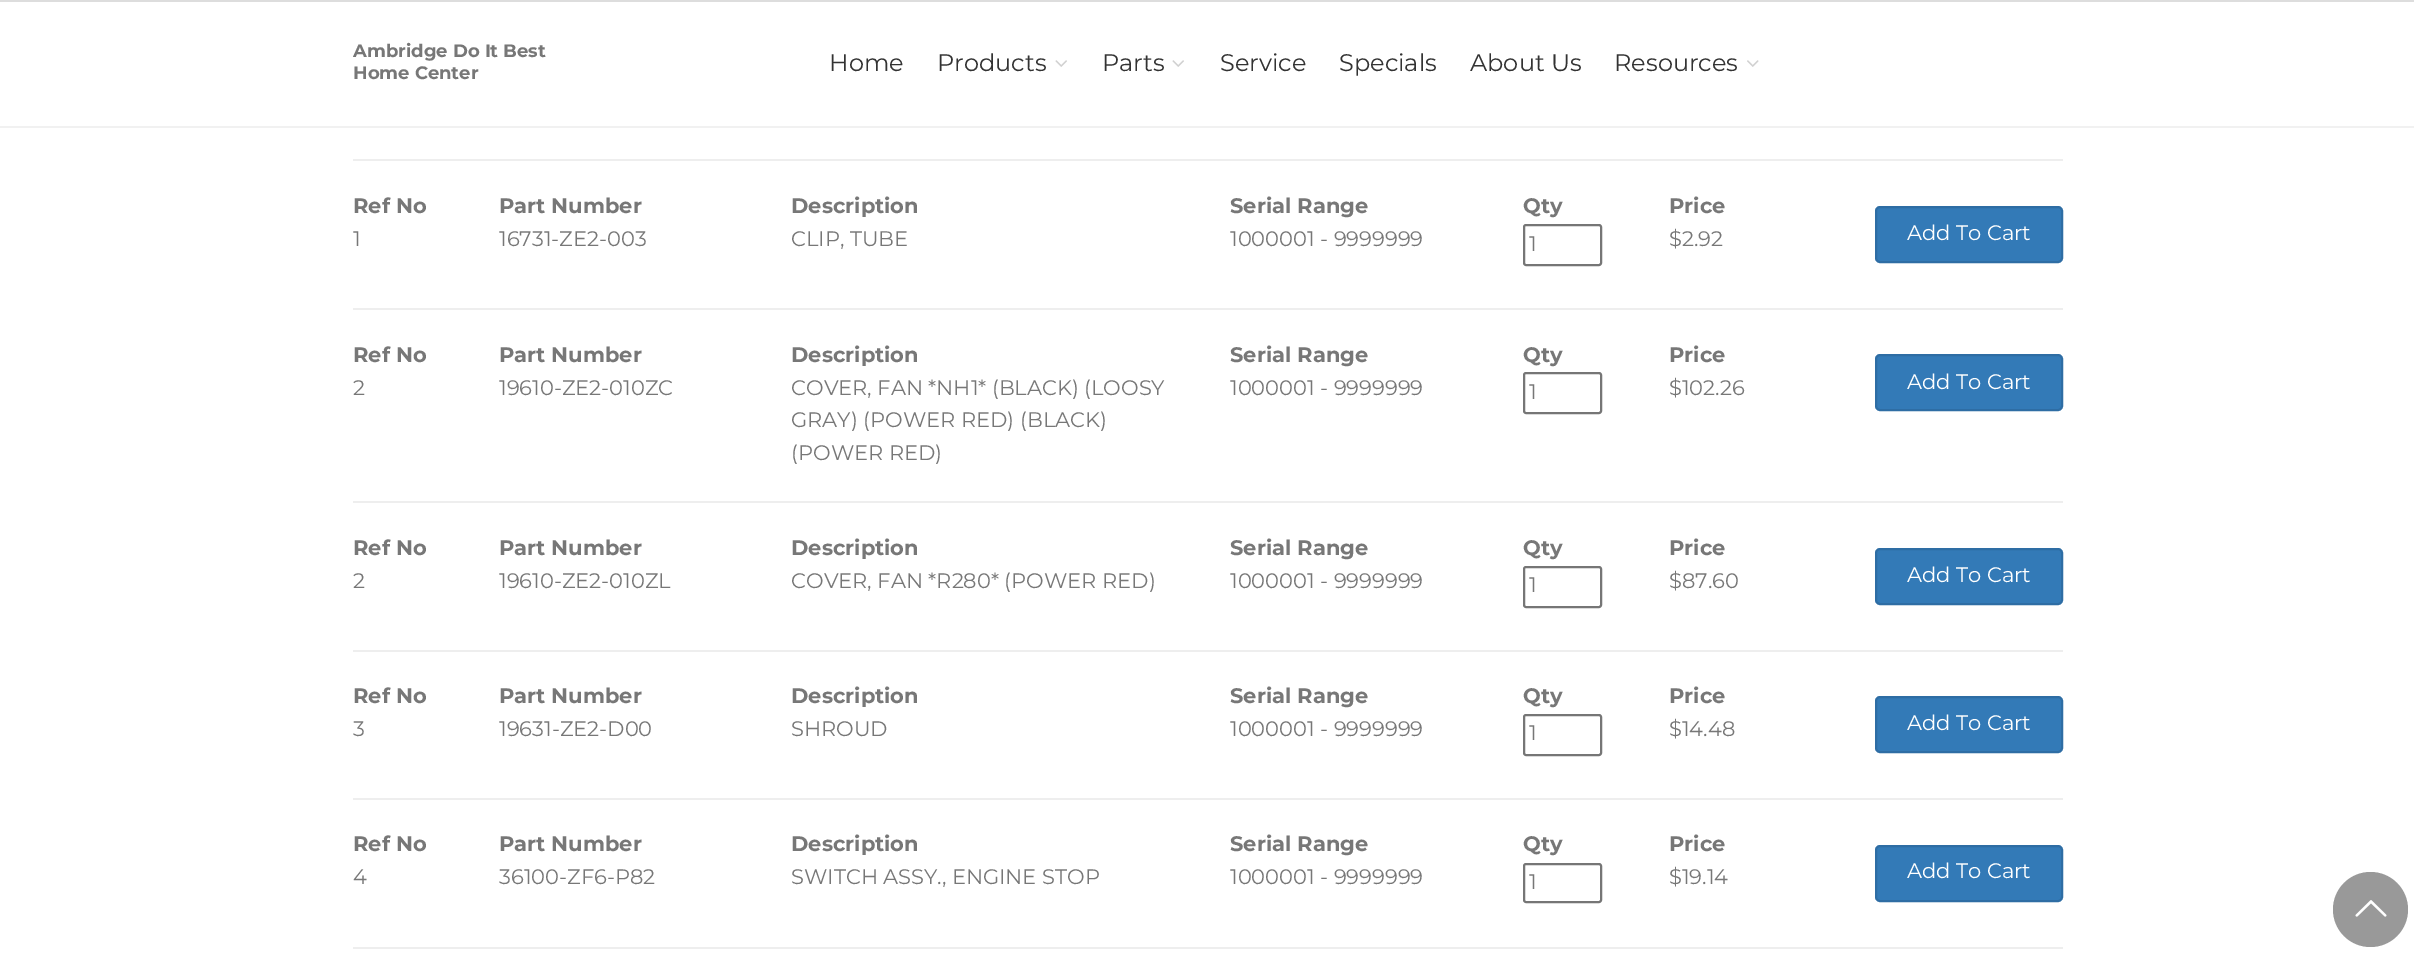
%!PS-Adobe-3.0
%%BoundingBox: 0 0 2414 953
%%LanguageLevel: 3
%%Pages: 1
%%EndComments
%%BeginProlog
/rrect { 5 dict begin { /r /h /w /y /x } { exch def } forall
  x r add y moveto x w add y 2 copy h add r arct x w add y h add x 1 index r arct
  x y h add x y r arct x y 2 copy exch w add exch r arct closepath end } def
/drawimage { 5 dict begin { /h /w /y /x /name } { exch def } forall
  gsave x y translate w h scale
  w h 8 [w 0 0 h 0 0] name (r) file false 3 colorimage grestore end } def
%%EndProlog
%%BeginSetup
<< /PageSize [2414 953] >> setpagedevice
%%EndSetup
%%Page: 1 1
0 953 translate 1 -1 scale
4 setmiterlimit
1 setgray
0 0 2414 953 rectfill
0.867 setgray
0 0 2414 2 rectfill
0.945 setgray
0 126 2414 2 rectfill
(images/1.raw) 1055 60 12 7 drawimage
(images/1.raw) 1172 60 12 7 drawimage
(images/2.raw) 1747 60 12 7 drawimage
0.933 setgray
353 159 1710 2 rectfill
0.463 setgray
2 setlinewidth
1524 225 77 40 2 rrect stroke
0.2 0.478 0.718 setrgbcolor
1876 207 186 55 4 rrect gsave fill grestore
0.18 0.427 0.643 setrgbcolor
stroke
0.933 setgray
353 308 1710 2 rectfill
0.463 setgray
1524 373 77 40 2 rrect stroke
0.2 0.478 0.718 setrgbcolor
1876 355 186 55 4 rrect gsave fill grestore
0.18 0.427 0.643 setrgbcolor
stroke
0.933 setgray
353 501 1710 2 rectfill
0.463 setgray
1524 567 77 40 2 rrect stroke
0.2 0.478 0.718 setrgbcolor
1876 549 186 55 4 rrect gsave fill grestore
0.18 0.427 0.643 setrgbcolor
stroke
0.933 setgray
353 650 1710 2 rectfill
0.463 setgray
1524 715 77 40 2 rrect stroke
0.2 0.478 0.718 setrgbcolor
1876 697 186 55 4 rrect gsave fill grestore
0.18 0.427 0.643 setrgbcolor
stroke
0.933 setgray
353 798 1710 2 rectfill
0.463 setgray
1524 864 77 38 2 rrect stroke
0.2 0.478 0.718 setrgbcolor
1876 846 186 55 4 rrect gsave fill grestore
0.18 0.427 0.643 setrgbcolor
stroke
0.933 setgray
353 947 1710 2 rectfill
0.6 setgray
newpath 2370.5 909.5 37.5 0 360 arc closepath fill
(images/3.raw) 2355 900 32 17 drawimage
/Montserrat-Bold [18 0 0 -18 0 0] selectfont
0.467 setgray
353 57 moveto (Ambridge Do It Best) show
353 79 moveto (Home Center) show
/Montserrat-Regular [24 0 0 -24 0 0] selectfont
0.2 setgray
829 71 moveto (Home) show
937 71 moveto (Products) show
1102 71 moveto (Parts) show
1220 71 moveto (Service) show
1339 71 moveto (Specials) show
1470 71 moveto (About Us) show
1614 71 moveto (Resources) show
/Montserrat-Bold [21 0 0 -21 0 0] selectfont
0.467 setgray
353 213 moveto (Ref No) show
/Montserrat-Regular [21 0 0 -21 0 0] selectfont
353 246 moveto (1) show
/Montserrat-Bold [21 0 0 -21 0 0] selectfont
499 213 moveto (Part Number) show
/Montserrat-Regular [21 0 0 -21 0 0] selectfont
499 246 moveto (16731-ZE2-003) show
/Montserrat-Bold [21 0 0 -21 0 0] selectfont
791 213 moveto (Description) show
/Montserrat-Regular [21 0 0 -21 0 0] selectfont
791 246 moveto (CLIP, TUBE) show
/Montserrat-Bold [21 0 0 -21 0 0] selectfont
1230 213 moveto (Serial Range) show
/Montserrat-Regular [21 0 0 -21 0 0] selectfont
1230 246 moveto (1000001 - 9999999) show
/Montserrat-Bold [21 0 0 -21 0 0] selectfont
1523 213 moveto (Qty) show
/Montserrat-Regular [21 0 0 -21 0 0] selectfont
1529 251 moveto (1) show
/Montserrat-Bold [21 0 0 -21 0 0] selectfont
1669 213 moveto (Price) show
/Montserrat-Regular [21 0 0 -21 0 0] selectfont
1669 246 moveto ($2.92) show
1 setgray
1907 240 moveto (Add To Cart) show
/Montserrat-Bold [21 0 0 -21 0 0] selectfont
0.467 setgray
353 362 moveto (Ref No) show
/Montserrat-Regular [21 0 0 -21 0 0] selectfont
353 395 moveto (2) show
/Montserrat-Bold [21 0 0 -21 0 0] selectfont
499 362 moveto (Part Number) show
/Montserrat-Regular [21 0 0 -21 0 0] selectfont
499 395 moveto (19610-ZE2-010ZC) show
/Montserrat-Bold [21 0 0 -21 0 0] selectfont
791 362 moveto (Description) show
/Montserrat-Regular [21 0 0 -21 0 0] selectfont
791 395 moveto (COVER, FAN *NH1* \(BLACK\) \(LOOSY) show
791 427 moveto (GRAY\) \(POWER RED\) \(BLACK\)) show
791 460 moveto (\(POWER RED\)) show
/Montserrat-Bold [21 0 0 -21 0 0] selectfont
1230 362 moveto (Serial Range) show
/Montserrat-Regular [21 0 0 -21 0 0] selectfont
1230 395 moveto (1000001 - 9999999) show
/Montserrat-Bold [21 0 0 -21 0 0] selectfont
1523 362 moveto (Qty) show
/Montserrat-Regular [21 0 0 -21 0 0] selectfont
1529 399 moveto (1) show
/Montserrat-Bold [21 0 0 -21 0 0] selectfont
1669 362 moveto (Price) show
/Montserrat-Regular [21 0 0 -21 0 0] selectfont
1669 395 moveto ($102.26) show
1 setgray
1907 389 moveto (Add To Cart) show
/Montserrat-Bold [21 0 0 -21 0 0] selectfont
0.467 setgray
353 555 moveto (Ref No) show
/Montserrat-Regular [21 0 0 -21 0 0] selectfont
353 588 moveto (2) show
/Montserrat-Bold [21 0 0 -21 0 0] selectfont
499 555 moveto (Part Number) show
/Montserrat-Regular [21 0 0 -21 0 0] selectfont
499 588 moveto (19610-ZE2-010ZL) show
/Montserrat-Bold [21 0 0 -21 0 0] selectfont
791 555 moveto (Description) show
/Montserrat-Regular [21 0 0 -21 0 0] selectfont
791 588 moveto (COVER, FAN *R280* \(POWER RED\)) show
/Montserrat-Bold [21 0 0 -21 0 0] selectfont
1230 555 moveto (Serial Range) show
/Montserrat-Regular [21 0 0 -21 0 0] selectfont
1230 588 moveto (1000001 - 9999999) show
/Montserrat-Bold [21 0 0 -21 0 0] selectfont
1523 555 moveto (Qty) show
/Montserrat-Regular [21 0 0 -21 0 0] selectfont
1529 592 moveto (1) show
/Montserrat-Bold [21 0 0 -21 0 0] selectfont
1669 555 moveto (Price) show
/Montserrat-Regular [21 0 0 -21 0 0] selectfont
1669 588 moveto ($87.60) show
1 setgray
1907 582 moveto (Add To Cart) show
/Montserrat-Bold [21 0 0 -21 0 0] selectfont
0.467 setgray
353 703 moveto (Ref No) show
/Montserrat-Regular [21 0 0 -21 0 0] selectfont
353 736 moveto (3) show
/Montserrat-Bold [21 0 0 -21 0 0] selectfont
499 703 moveto (Part Number) show
/Montserrat-Regular [21 0 0 -21 0 0] selectfont
499 736 moveto (19631-ZE2-D00) show
/Montserrat-Bold [21 0 0 -21 0 0] selectfont
791 703 moveto (Description) show
/Montserrat-Regular [21 0 0 -21 0 0] selectfont
791 736 moveto (SHROUD) show
/Montserrat-Bold [21 0 0 -21 0 0] selectfont
1230 703 moveto (Serial Range) show
/Montserrat-Regular [21 0 0 -21 0 0] selectfont
1230 736 moveto (1000001 - 9999999) show
/Montserrat-Bold [21 0 0 -21 0 0] selectfont
1523 703 moveto (Qty) show
/Montserrat-Regular [21 0 0 -21 0 0] selectfont
1529 740 moveto (1) show
/Montserrat-Bold [21 0 0 -21 0 0] selectfont
1669 703 moveto (Price) show
/Montserrat-Regular [21 0 0 -21 0 0] selectfont
1669 736 moveto ($14.48) show
1 setgray
1907 730 moveto (Add To Cart) show
/Montserrat-Bold [21 0 0 -21 0 0] selectfont
0.467 setgray
353 851 moveto (Ref No) show
/Montserrat-Regular [21 0 0 -21 0 0] selectfont
353 884 moveto (4) show
/Montserrat-Bold [21 0 0 -21 0 0] selectfont
499 851 moveto (Part Number) show
/Montserrat-Regular [21 0 0 -21 0 0] selectfont
499 884 moveto (36100-ZF6-P82) show
/Montserrat-Bold [21 0 0 -21 0 0] selectfont
791 851 moveto (Description) show
/Montserrat-Regular [21 0 0 -21 0 0] selectfont
791 884 moveto (SWITCH ASSY., ENGINE STOP) show
/Montserrat-Bold [21 0 0 -21 0 0] selectfont
1230 851 moveto (Serial Range) show
/Montserrat-Regular [21 0 0 -21 0 0] selectfont
1230 884 moveto (1000001 - 9999999) show
/Montserrat-Bold [21 0 0 -21 0 0] selectfont
1523 851 moveto (Qty) show
/Montserrat-Regular [21 0 0 -21 0 0] selectfont
1529 889 moveto (1) show
/Montserrat-Bold [21 0 0 -21 0 0] selectfont
1669 851 moveto (Price) show
/Montserrat-Regular [21 0 0 -21 0 0] selectfont
1669 884 moveto ($19.14) show
1 setgray
1907 878 moveto (Add To Cart) show
showpage
%%EOF
